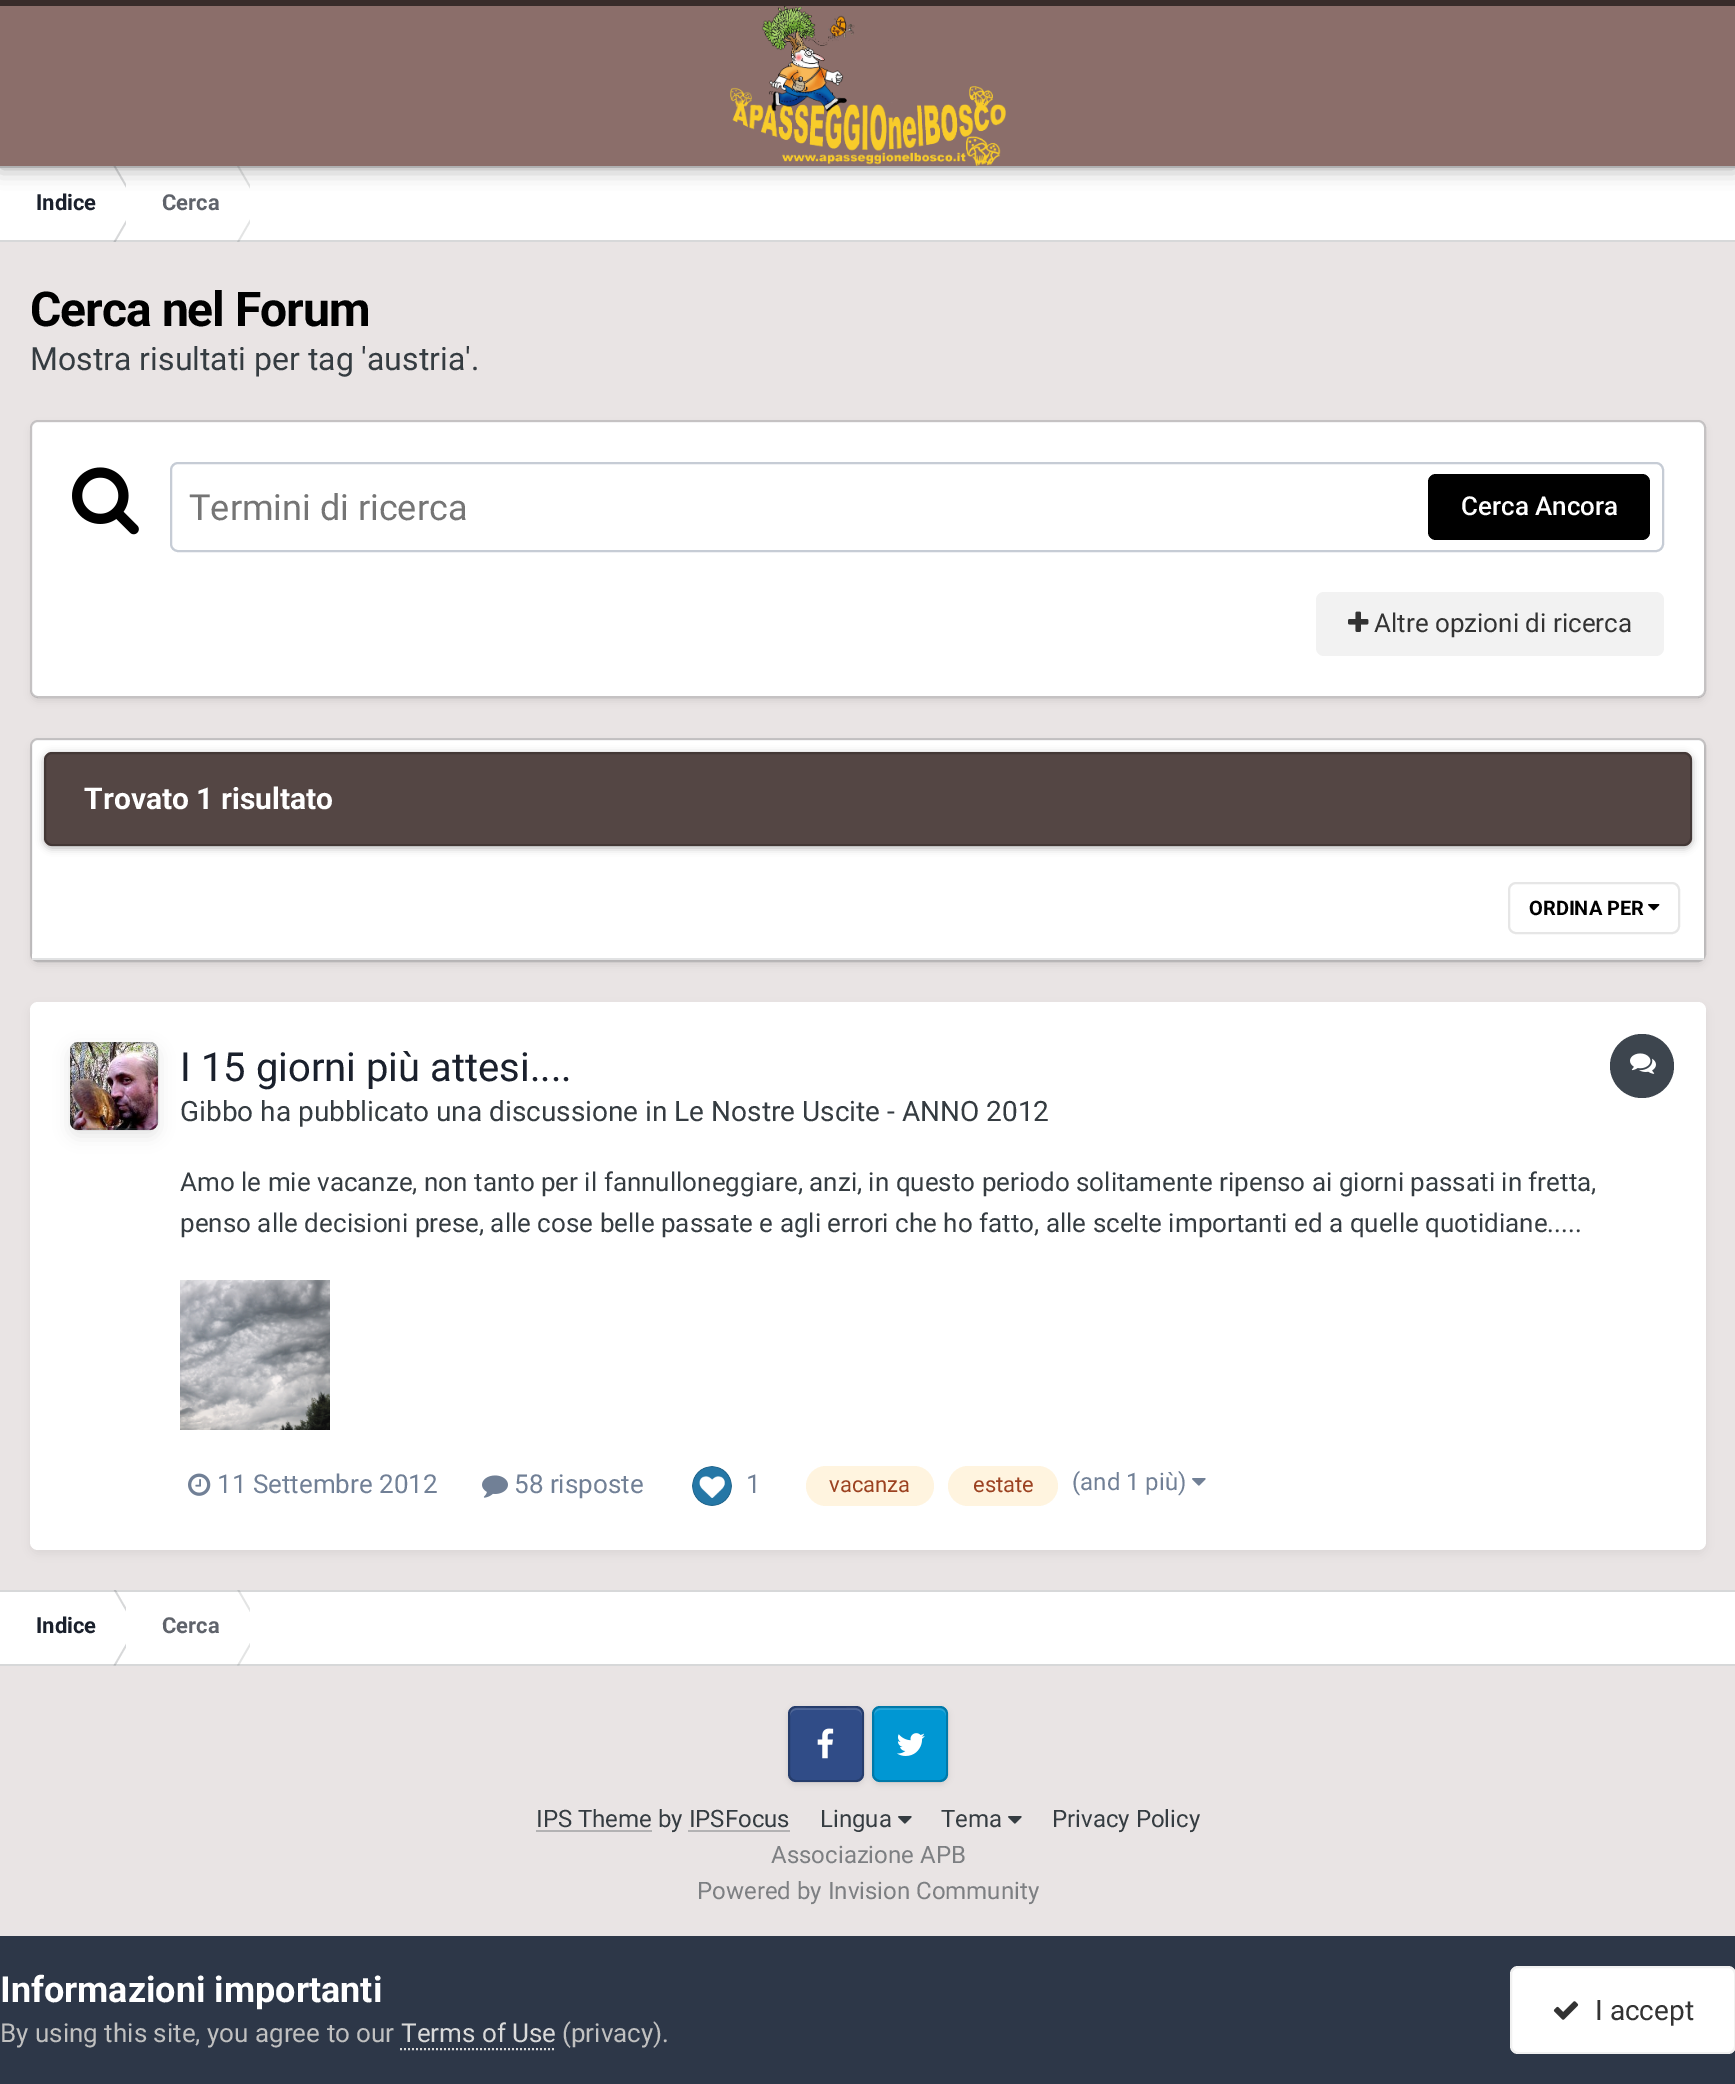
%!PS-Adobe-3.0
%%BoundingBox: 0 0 1735 2084
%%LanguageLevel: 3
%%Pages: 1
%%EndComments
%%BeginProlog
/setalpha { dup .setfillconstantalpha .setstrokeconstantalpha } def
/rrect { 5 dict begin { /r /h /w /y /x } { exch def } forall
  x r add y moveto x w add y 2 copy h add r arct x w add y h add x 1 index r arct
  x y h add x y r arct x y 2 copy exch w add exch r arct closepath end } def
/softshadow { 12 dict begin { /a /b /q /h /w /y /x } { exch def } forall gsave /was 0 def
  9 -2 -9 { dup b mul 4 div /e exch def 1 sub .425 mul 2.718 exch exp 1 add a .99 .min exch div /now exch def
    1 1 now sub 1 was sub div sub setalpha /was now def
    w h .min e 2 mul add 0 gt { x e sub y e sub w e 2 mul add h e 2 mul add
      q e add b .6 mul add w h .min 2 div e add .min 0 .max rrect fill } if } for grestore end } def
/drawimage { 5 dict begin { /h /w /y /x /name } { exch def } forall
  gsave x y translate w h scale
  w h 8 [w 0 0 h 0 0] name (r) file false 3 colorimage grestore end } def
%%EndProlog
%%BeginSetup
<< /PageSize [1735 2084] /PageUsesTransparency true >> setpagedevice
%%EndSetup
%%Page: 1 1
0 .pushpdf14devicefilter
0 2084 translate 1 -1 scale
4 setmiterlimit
0.914 0.894 0.894 setrgbcolor
0 0 1735 2084 rectfill
1 setgray
0 166 1735 76 rectfill
gsave
0 166 126 76 rectclip
0.843 0.847 0.851 setrgbcolor
newpath 113.5 166 moveto 115.5 166 lineto 137.5 204 lineto 135.5 204 lineto closepath fill
grestore
gsave
126 166 124 76 rectclip
0.89 0.894 0.894 setrgbcolor
newpath 237 166 moveto 239 166 lineto 261 204 lineto 259 204 lineto closepath fill
grestore
0.2 setalpha
0.208 0.235 0.255 setrgbcolor
0 166 1735 2 rectfill
1 setalpha
0 setgray
0 -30 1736 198 0 10 0.35 softshadow
0.545 0.431 0.416 setrgbcolor
0 6 1735 160 rectfill
0.22 0.173 0.165 setrgbcolor
0 0 1735 6 rectfill
(images/1.raw) 730 6 276 160 drawimage
gsave
0 166 126 76 rectclip
0.843 0.847 0.851 setrgbcolor
newpath 113.5 242 moveto 115.5 242 lineto 137.5 204 lineto 135.5 204 lineto closepath fill
grestore
gsave
126 166 124 76 rectclip
0.89 0.894 0.894 setrgbcolor
newpath 237 242 moveto 239 242 lineto 261 204 lineto 259 204 lineto closepath fill
grestore
0.2 setalpha
0.208 0.235 0.255 setrgbcolor
0 240 1735 2 rectfill
gsave
newpath 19 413 moveto 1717 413 lineto 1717 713 lineto 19 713 lineto closepath 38 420 moveto 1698 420 lineto 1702.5 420 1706 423.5 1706 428 curveto 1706 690 lineto 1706 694.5 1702.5 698 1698 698 curveto 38 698 lineto 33.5 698 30 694.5 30 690 curveto 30 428 lineto 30 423.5 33.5 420 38 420 curveto closepath eoclip newpath
1 setalpha
0 setgray
32 426 1672 274 6 4 0.1 softshadow
grestore
1 setalpha
1 setgray
32 422 1672 274 6 rrect fill
0.2 setalpha
0.208 0.235 0.255 setrgbcolor
2 setlinewidth
31 421 1674 276 7 rrect stroke
1 setalpha
(images/2.raw) 72 467 67 68 drawimage
0.776 0.8 0.835 setrgbcolor
171 463 1492 88 7 rrect stroke
0 setgray
1428 474 222 66 8 rrect fill
0.949 setgray
1316 592 348 64 8 rrect fill
(images/3.raw) 1348 611 21 21 drawimage
0 setgray
32 744 1672 220 6 4 0.1 softshadow
1 setgray
32 740 1672 220 6 rrect fill
0.2 setalpha
0.208 0.235 0.255 setrgbcolor
31 739 1674 222 7 rrect stroke
1 setalpha
0 setgray
44 754 1648 94 8 4 0.3 softshadow
0.545 0.431 0.416 setrgbcolor
44 752 1648 94 8 rrect fill
0.5 setalpha
0.118 setgray
newpath 52 752 moveto 48 752 44 756 44 760 curveto 44 838 lineto 44 842 48 846 52 846 curveto 1684 846 lineto 1688 846 1692 842 1692 838 curveto 1692 760 lineto 1692 756 1688 752 1684 752 curveto closepath fill
0.2 setalpha
0 setgray
45 753 1646 92 7 rrect stroke
1 setalpha
1 setgray
32 954 1672 4 rectfill
0.882 0.886 0.89 setrgbcolor
32 958 1672 2 rectfill
(images/4.raw) 1648 904 12 7 drawimage
0.902 setgray
1509 883 170 50 7 rrect stroke
0 setgray
30 1006 1676 548 8 5 0.05 softshadow
1 setgray
30 1002 1676 548 8 rrect fill
(images/5.raw) 70 1042 88 88 drawimage
gsave
newpath 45 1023 moveto 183 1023 lineto 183 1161 lineto 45 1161 lineto closepath 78 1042 moveto 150 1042 lineto 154.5 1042 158 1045.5 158 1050 curveto 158 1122 lineto 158 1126.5 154.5 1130 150 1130 curveto 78 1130 lineto 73.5 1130 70 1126.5 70 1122 curveto 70 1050 lineto 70 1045.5 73.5 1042 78 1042 curveto closepath eoclip newpath
0 setgray
70 1048 88 88 8 8 0.1 softshadow
grestore
0.3 setalpha
0.208 0.235 0.255 setrgbcolor
71 1043 86 86 7 rrect stroke
1 setalpha
0.239 0.271 0.306 setrgbcolor
newpath 1642 1066 32 0 360 arc closepath fill
(images/6.raw) 1630 1053 26 21 drawimage
(images/7.raw) 180 1280 150 150 drawimage
(images/8.raw) 188 1473 23 23 drawimage
(images/9.raw) 482 1475 26 23 drawimage
(images/10.raw) 692 1466 40 40 drawimage
1 0.957 0.875 setrgbcolor
806 1466 128 40 20 rrect fill
948 1466 110 40 20 rrect fill
(images/11.raw) 1192 1478 14 8 drawimage
1 setgray
0 1590 1735 76 rectfill
gsave
0 1590 126 76 rectclip
0.843 0.847 0.851 setrgbcolor
newpath 113.5 1589.5 moveto 115.5 1589.5 lineto 137.5 1627.5 lineto 135.5 1627.5 lineto closepath fill
grestore
gsave
126 1590 124 76 rectclip
0.89 0.894 0.894 setrgbcolor
newpath 237 1589.5 moveto 239 1589.5 lineto 261 1627.5 lineto 259 1627.5 lineto closepath fill
grestore
0.2 setalpha
0.208 0.235 0.255 setrgbcolor
0 1590 1735 2 rectfill
gsave
0 1590 126 76 rectclip
1 setalpha
0.843 0.847 0.851 setrgbcolor
newpath 113.5 1665.5 moveto 115.5 1665.5 lineto 137.5 1627.5 lineto 135.5 1627.5 lineto closepath fill
grestore
gsave
126 1590 124 76 rectclip
1 setalpha
0.89 0.894 0.894 setrgbcolor
newpath 237 1665.5 moveto 239 1665.5 lineto 261 1627.5 lineto 259 1627.5 lineto closepath fill
grestore
0 1664 1735 2 rectfill
1 setalpha
0 setgray
788 1708 76 76 8 3 0.1 softshadow
0.188 0.298 0.529 setrgbcolor
788 1706 76 76 8 rrect fill
0.31 0.404 0.6 setrgbcolor
newpath 796 1710 moveto 793 1710 790 1713 790 1716 curveto 790 1706 798 1708 806 1708 curveto 846 1708 lineto 854 1708 862 1706 862 1716 curveto 862 1713 859 1710 856 1710 curveto closepath fill
(images/12.raw) 817 1728 17 31 drawimage
0.2 setalpha
0 setgray
789 1707 74 74 7 rrect stroke
1 setalpha
872 1708 76 76 8 3 0.1 softshadow
0 0.592 0.827 setrgbcolor
872 1706 76 76 8 rrect fill
0.149 0.655 0.855 setrgbcolor
newpath 880 1710 moveto 877 1710 874 1713 874 1716 curveto 874 1706 882 1708 890 1708 curveto 930 1708 lineto 938 1708 946 1706 946 1716 curveto 946 1713 943 1710 940 1710 curveto closepath fill
(images/13.raw) 897 1733 28 23 drawimage
0.2 setalpha
0 setgray
873 1707 74 74 7 rrect stroke
1 setalpha
0.702 0.698 0.702 setrgbcolor
536 1830 116 2 rectfill
(images/14.raw) 898 1816 14 8 drawimage
(images/14.raw) 1008 1816 14 8 drawimage
0.176 0.216 0.282 setrgbcolor
0 1936 1735 148 rectfill
0.855 setgray
[2 2] 0 setdash
newpath 400 2049 moveto 556 2049 lineto stroke
1 setgray
1510 1966 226 88 8 rrect fill
0.07 setalpha
0.2 setgray
[] 0 setdash
1511 1967 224 86 7 rrect stroke
1 setalpha
(images/15.raw) 1553 2001 26 19 drawimage
/Roboto-Bold [22 0 0 -22 0 0] selectfont
0.102 0.125 0.173 setrgbcolor
36 210 moveto (Indice) show
0.373 0.388 0.42 setrgbcolor
162 210 moveto (Cerca) show
/Roboto-Bold [48 0 0 -48 0 0] selectfont
0 setgray
30 326 moveto -1 0 (Cerca nel Forum) ashow
/Roboto-Regular [32 0 0 -32 0 0] selectfont
0.208 0.235 0.255 setrgbcolor
30 370 moveto (Mostra risultati per tag 'austria'.) show
/Roboto-Regular [36 0 0 -36 0 0] selectfont
0.459 setgray
189 520 moveto (Termini di ricerca) show
/Roboto-Medium [26 0 0 -26 0 0] selectfont
1 setgray
1461 515 moveto (Cerca Ancora) show
/Roboto-Regular [26 0 0 -26 0 0] selectfont
0.2 setgray
1374 632 moveto (Altre opzioni di ricerca) show
/Roboto-Bold [30 0 0 -30 0 0] selectfont
1 setgray
84 809 moveto (Trovato 1 risultato) show
/Roboto-Bold [20 0 0 -20 0 0] selectfont
0 setgray
1529 915 moveto (ORDINA PER) show
/Roboto-Regular [40 0 0 -40 0 0] selectfont
0.102 0.125 0.173 setrgbcolor
180 1081 moveto (I 15 giorni più attesi....) show
/Roboto-Regular [28 0 0 -28 0 0] selectfont
0.208 0.235 0.255 setrgbcolor
180 1121 moveto (Gibbo ha pubblicato una discussione in Le Nostre Uscite - ANNO 2012) show
/Roboto-Regular [26 0 0 -26 0 0] selectfont
180 1191 moveto (Amo le mie vacanze, non tanto per il fannulloneggiare, anzi, in questo periodo solitamente ripenso ai giorni passati in fretta,) show
180 1232 moveto (penso alle decisioni prese, alle cose belle passate e agli errori che ho fatto, alle scelte importanti ed a quelle quotidiane.....) show
0.443 0.502 0.588 setrgbcolor
217 1493 moveto (11 Settembre 2012) show
514 1493 moveto (58 risposte) show
746 1493 moveto (1) show
/Roboto-Regular [22 0 0 -22 0 0] selectfont
0.612 0.259 0.129 setrgbcolor
829 1492 moveto (vacanza) show
973 1492 moveto (estate) show
/Roboto-Regular [24 0 0 -24 0 0] selectfont
0.443 0.502 0.588 setrgbcolor
1072 1490 moveto (\(and 1 più\)) show
/Roboto-Bold [22 0 0 -22 0 0] selectfont
0.102 0.125 0.173 setrgbcolor
36 1633 moveto (Indice) show
0.373 0.388 0.42 setrgbcolor
162 1633 moveto (Cerca) show
/Roboto-Regular [24 0 0 -24 0 0] selectfont
0.208 0.235 0.255 setrgbcolor
536 1827 moveto (IPS Theme by IPSFocus) show
0.702 0.698 0.702 setrgbcolor
688 1830 102 2 rectfill
0.208 0.235 0.255 setrgbcolor
820 1827 moveto (Lingua) show
941 1827 moveto (Tema) show
1052 1827 moveto (Privacy Policy) show
0.49 0.498 0.51 setrgbcolor
771 1863 moveto (Associazione APB) show
697 1899 moveto (Powered by Invision Community) show
/Roboto-Bold [36 0 0 -36 0 0] selectfont
1 setgray
0 2002 moveto (Informazioni importanti) show
/Roboto-Regular [26 0 0 -26 0 0] selectfont
0.753 setgray
0 2042 moveto (By using this site, you agree to our) show
0.855 setgray
401 2042 moveto (Terms of Use) show
0.753 setgray
562 2042 moveto (\(privacy\).) show
/Roboto-Regular [28 0 0 -28 0 0] selectfont
0.2 setgray
1595 2020 moveto (I accept) show
.poppdf14devicefilter showpage
%%EOF
